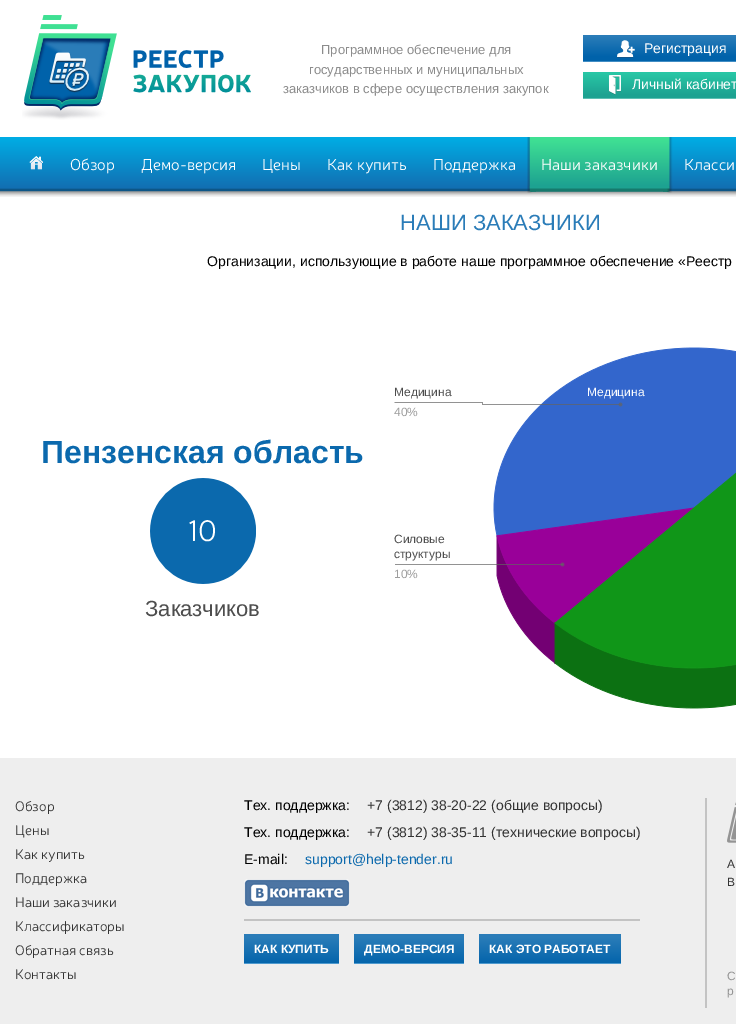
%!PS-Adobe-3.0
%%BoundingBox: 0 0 736 1024
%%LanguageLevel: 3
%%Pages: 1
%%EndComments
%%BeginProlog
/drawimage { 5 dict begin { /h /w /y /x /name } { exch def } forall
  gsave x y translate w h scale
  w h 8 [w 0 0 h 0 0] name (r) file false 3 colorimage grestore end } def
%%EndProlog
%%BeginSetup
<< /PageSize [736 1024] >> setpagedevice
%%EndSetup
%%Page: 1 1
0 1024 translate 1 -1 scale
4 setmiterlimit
1 setgray
0 0 736 1024 rectfill
(images/1.raw) 22 15 229 105 drawimage
(images/2.raw) 583 35 153 27 drawimage
(images/3.raw) 617 40 18 18 drawimage
(images/4.raw) 583 72 153 27 drawimage
(images/5.raw) 608 75 13 20 drawimage
(images/6.raw) 0 137 736 60 drawimage
(images/7.raw) 29 156 14 14 drawimage
(images/8.raw) 531 137 137 55 drawimage
(images/9.raw) 527 137 9 56 drawimage
(images/10.raw) 663 137 10 56 drawimage
(images/11.raw) 150 478 106 106 drawimage
(images/12.raw) 394 347 342 362 drawimage
0.933 setgray
0 758 736 266 rectfill
0.765 setgray
244 919 396 2 rectfill
(images/13.raw) 244 879 106 28 drawimage
(images/14.raw) 244 934 95 30 drawimage
(images/15.raw) 354 934 110 30 drawimage
(images/16.raw) 479 934 142 30 drawimage
705 798 2 210 rectfill
(images/17.raw) 727 802 9 41 drawimage
/LiberationSans-Regular [13 0 0 -13 0 0] selectfont
0.549 setgray
321 54 moveto (Программное обеспечение для) show
309 74 moveto (государственных и муниципальных) show
283 93 moveto (заказчиков в сфере осуществления закупок) show
/LiberationSans-Regular [14 0 0 -14 0 0] selectfont
1 setgray
644 53 moveto (Регистрация) show
632 89 moveto (Личный кабинет) show
/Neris-Light [16 0 0 -16 0 0] selectfont
70 170 moveto (Обзор) show
141 170 moveto (Демо-версия) show
262 170 moveto (Цены) show
327 170 moveto (Как купить) show
433 170 moveto (Поддержка) show
541 170 moveto (Наши заказчики) show
684 170 moveto (Класси) show
/LiberationSans-Regular [22 0 0 -22 0 0] selectfont
0.165 0.486 0.722 setrgbcolor
400 230 moveto (НАШИ ЗАКАЗЧИКИ) show
/LiberationSans-Regular [14 0 0 -14 0 0] selectfont
0 setgray
207 266 moveto (Организации, использующие в работе наше программное обеспечение «Реестр) show
/LiberationSans-Bold [32 0 0 -32 0 0] selectfont
0.043 0.412 0.678 setrgbcolor
41 463 moveto (Пензенская область) show
/Neris-Light [30 0 0 -30 0 0] selectfont
1 setgray
188 541 moveto (10) show
/LiberationSans-Regular [22 0 0 -22 0 0] selectfont
0.302 setgray
145 616 moveto (Заказчиков) show
/LiberationSans-Regular [12 0 0 -12 0 0] selectfont
394 396 moveto (Медицина) show
1 setgray
587 396 moveto (Медицина) show
0.62 setgray
394 416 moveto (40%) show
0.302 setgray
394 543 moveto (Силовые) show
394 558 moveto (структуры) show
0.62 setgray
394 578 moveto (10%) show
/Neris-Light [14 0 0 -14 0 0] selectfont
0.2 setgray
15 811 moveto (Обзор) show
15 835 moveto (Цены) show
15 859 moveto (Как купить) show
15 883 moveto (Поддержка) show
15 907 moveto (Наши заказчики) show
15 931 moveto (Классификаторы) show
15 955 moveto (Обратная связь) show
15 979 moveto (Контакты) show
/LiberationSans-Regular [14 0 0 -14 0 0] selectfont
0 setgray
244 810 moveto (Тех. поддержка:) show
0.2 setgray
367 810 moveto (+7 \(3812\) 38-20-22 \(общие вопросы\)) show
0 setgray
244 837 moveto (Тех. поддержка:) show
0.2 setgray
367 837 moveto (+7 \(3812\) 38-35-11 \(технические вопросы\)) show
0 setgray
244 864 moveto (E-mail:) show
0.043 0.412 0.678 setrgbcolor
305 864 moveto (support@help-tender.ru) show
/LiberationSans-Bold [12 0 0 -12 0 0] selectfont
1 setgray
254 953 moveto (КАК КУПИТЬ) show
364 953 moveto (ДЕМО-ВЕРСИЯ) show
489 953 moveto (КАК ЭТО РАБОТАЕТ) show
/LiberationSans-Regular [12 0 0 -12 0 0] selectfont
0.2 setgray
727 868 moveto (А) show
727 886 moveto (В) show
0.58 setgray
727 980 moveto (С) show
727 995 moveto (р) show
showpage
%%EOF
